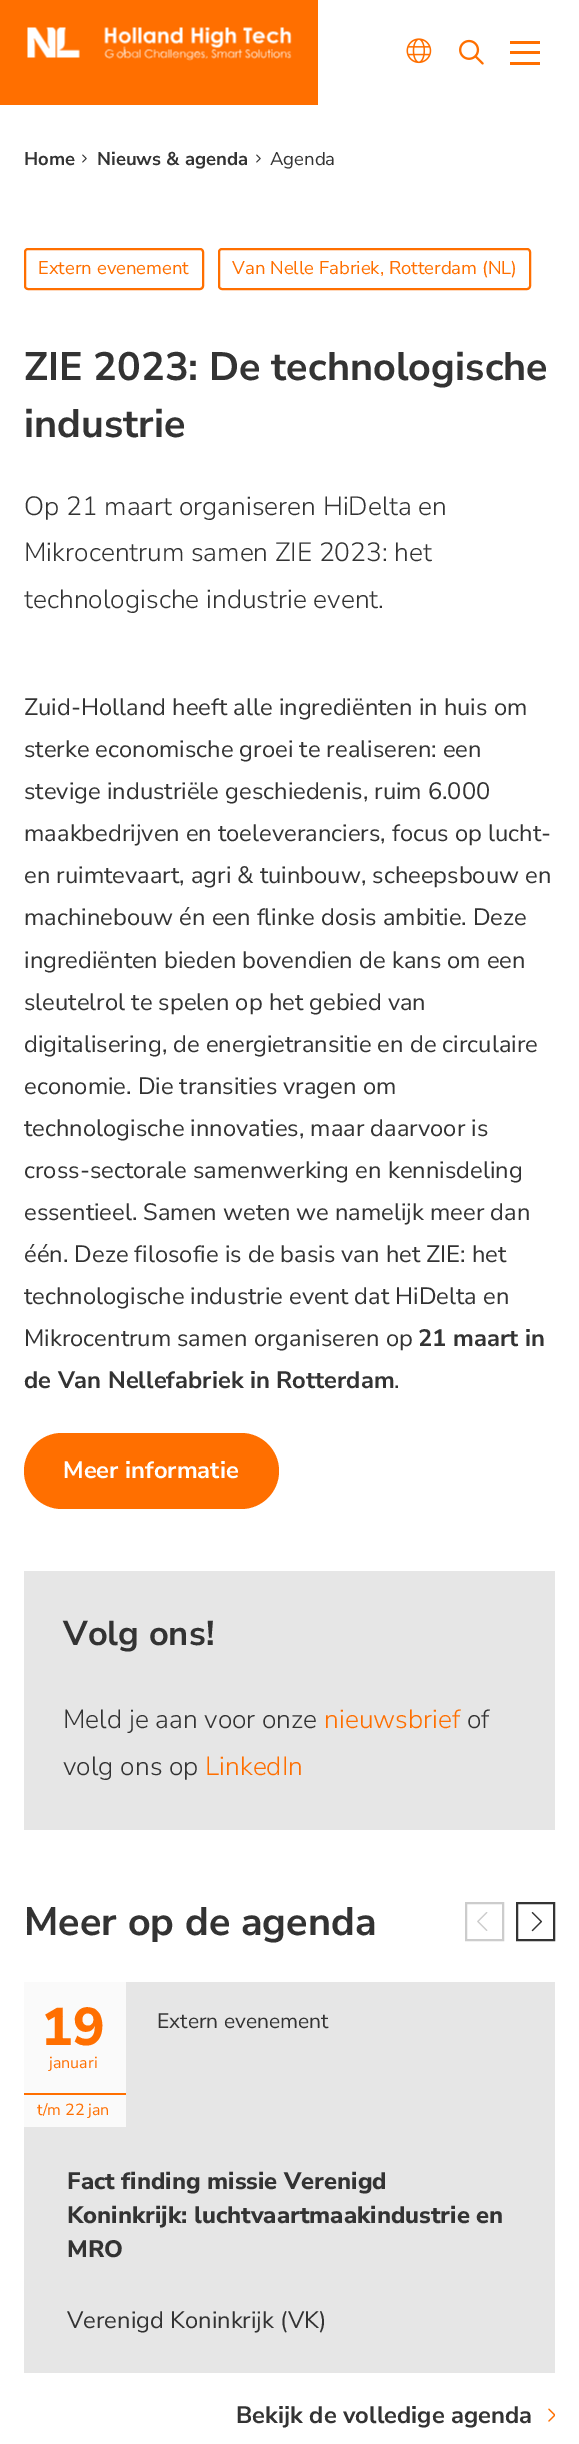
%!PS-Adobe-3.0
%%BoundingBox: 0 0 579 2444
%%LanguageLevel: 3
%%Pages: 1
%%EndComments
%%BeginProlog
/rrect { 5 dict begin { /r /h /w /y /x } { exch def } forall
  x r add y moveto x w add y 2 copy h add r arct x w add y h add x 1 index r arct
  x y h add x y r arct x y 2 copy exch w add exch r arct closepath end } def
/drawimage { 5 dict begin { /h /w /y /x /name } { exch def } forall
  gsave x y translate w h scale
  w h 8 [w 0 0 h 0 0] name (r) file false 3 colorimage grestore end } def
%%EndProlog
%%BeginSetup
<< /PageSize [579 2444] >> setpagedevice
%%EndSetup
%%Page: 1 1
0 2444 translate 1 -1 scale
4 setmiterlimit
1 setgray
0 0 579 2444 rectfill
1 0.435 0 setrgbcolor
0 0 318 105 rectfill
(images/1.raw) 27 27 265 34 drawimage
(images/2.raw) 406 38 26 26 drawimage
(images/3.raw) 459 39 25 26 drawimage
510 51 30 3 rectfill
510 41 30 3 rectfill
510 62 30 3 rectfill
(images/4.raw) 82 154 5 9 drawimage
(images/4.raw) 256 154 5 9 drawimage
2 setlinewidth
25 249 178 40 3 rrect stroke
219 249 311 40 3 rrect stroke
24 1433 255 76 38 rrect fill
0.902 setgray
24 1571 531 259 rectfill
0.8 setgray
466 1903 37 37 rectstroke
(images/5.raw) 477 1912 11 19 drawimage
0.2 setgray
517 1903 37 37 rectstroke
(images/6.raw) 531 1912 12 20 drawimage
0.902 setgray
24 1982 531 391 rectfill
0.98 setgray
24 1982 102 145 rectfill
1 0.435 0 setrgbcolor
24 2093 102 2 rectfill
(images/7.raw) 548 2408 7 14 drawimage
/NunitoSans-Bold [18.5 0 0 -18.5 0 0] selectfont
0.2 setgray
24 165 moveto (Home) show
97 165 moveto (Nieuws & agenda) show
/NunitoSans-Regular [18.5 0 0 -18.5 0 0] selectfont
270 165 moveto (Agenda) show
1 0.435 0 setrgbcolor
38 274 moveto (Extern evenement) show
232 274 moveto (Van Nelle Fabriek, Rotterdam \(NL\)) show
/NunitoSans-Bold [39.6 0 0 -39.6 0 0] selectfont
0.2 setgray
24 380 moveto (ZIE 2023: De technologische) show
24 437 moveto (industrie) show
/NunitoSans-Light [26.4 0 0 -26.4 0 0] selectfont
24 515 moveto (Op 21 maart organiseren HiDelta en) show
24 561 moveto (Mikrocentrum samen ZIE 2023: het) show
24 608 moveto (technologische industrie event.) show
/NunitoSans-Regular [23.75 0 0 -23.75 0 0] selectfont
24 715 moveto (Zuid-Holland heeft alle ingrediënten in huis om) show
24 757 moveto (sterke economische groei te realiseren: een) show
24 799 moveto (stevige industriële geschiedenis, ruim 6.000) show
24 841 moveto (maakbedrijven en toeleveranciers, focus op lucht-) show
24 883 moveto (en ruimtevaart, agri & tuinbouw, scheepsbouw en) show
24 925 moveto (machinebouw én een flinke dosis ambitie. Deze) show
24 968 moveto (ingrediënten bieden bovendien de kans om een) show
24 1010 moveto (sleutelrol te spelen op het gebied van) show
24 1052 moveto (digitalisering, de energietransitie en de circulaire) show
24 1094 moveto (economie. Die transities vragen om) show
24 1136 moveto (technologische innovaties, maar daarvoor is) show
24 1178 moveto (cross-sectorale samenwerking en kennisdeling) show
24 1220 moveto (essentieel. Samen weten we namelijk meer dan) show
24 1262 moveto (één. Deze filosofie is de basis van het ZIE: het) show
24 1304 moveto (technologische industrie event dat HiDelta en) show
24 1346 moveto (Mikrocentrum samen organiseren op) show
/NunitoSans-Bold [23.75 0 0 -23.75 0 0] selectfont
418 1346 moveto (21 maart in) show
24 1388 moveto (de Van Nellefabriek in Rotterdam) show
/NunitoSans-Regular [23.75 0 0 -23.75 0 0] selectfont
394 1388 moveto (.) show
/NunitoSans-Bold [23.75 0 0 -23.75 0 0] selectfont
1 setgray
63 1478 moveto (Meer informatie) show
/NunitoSans-Bold [34.5 0 0 -34.5 0 0] selectfont
0.2 setgray
63 1645 moveto (Volg ons!) show
/NunitoSans-Light [26.4 0 0 -26.4 0 0] selectfont
63 1728 moveto (Meld je aan voor onze) show
1 0.435 0 setrgbcolor
324 1728 moveto (nieuwsbrief) show
0.2 setgray
467 1728 moveto (of) show
63 1775 moveto (volg ons op) show
1 0.435 0 setrgbcolor
205 1775 moveto (LinkedIn) show
/NunitoSans-Bold [39.6 0 0 -39.6 0 0] selectfont
0.2 setgray
24 1935 moveto (Meer op de agenda) show
/NunitoSans-ExtraBold [53 0 0 -53 0 0] selectfont
1 0.435 0 setrgbcolor
41 2045 moveto (19) show
/NunitoSans-Regular [16 0 0 -16 0 0] selectfont
49 2068 moveto (januari) show
37 2115 moveto (t/m 22 jan) show
/NunitoSans-Regular [21 0 0 -21 0 0] selectfont
0.2 setgray
157 2028 moveto (Extern evenement) show
/NunitoSans-ExtraBold [23.75 0 0 -23.75 0 0] selectfont
67 2189 moveto (Fact finding missie Verenigd) show
67 2223 moveto (Koninkrijk: luchtvaartmaakindustrie en) show
67 2257 moveto (MRO) show
/NunitoSans-Regular [23.75 0 0 -23.75 0 0] selectfont
67 2328 moveto (Verenigd Koninkrijk \(VK\)) show
/NunitoSans-Bold [23.75 0 0 -23.75 0 0] selectfont
236 2423 moveto (Bekijk de volledige agenda) show
showpage
%%EOF
